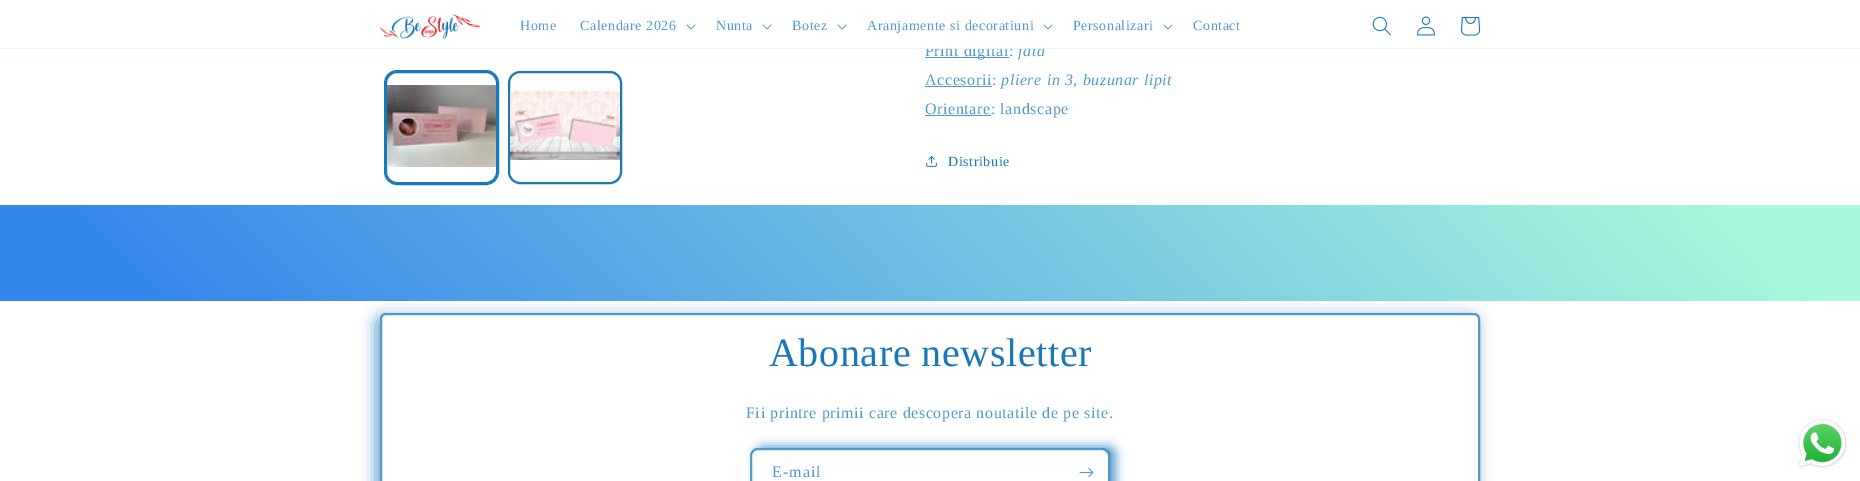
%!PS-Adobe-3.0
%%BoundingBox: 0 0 1860 481
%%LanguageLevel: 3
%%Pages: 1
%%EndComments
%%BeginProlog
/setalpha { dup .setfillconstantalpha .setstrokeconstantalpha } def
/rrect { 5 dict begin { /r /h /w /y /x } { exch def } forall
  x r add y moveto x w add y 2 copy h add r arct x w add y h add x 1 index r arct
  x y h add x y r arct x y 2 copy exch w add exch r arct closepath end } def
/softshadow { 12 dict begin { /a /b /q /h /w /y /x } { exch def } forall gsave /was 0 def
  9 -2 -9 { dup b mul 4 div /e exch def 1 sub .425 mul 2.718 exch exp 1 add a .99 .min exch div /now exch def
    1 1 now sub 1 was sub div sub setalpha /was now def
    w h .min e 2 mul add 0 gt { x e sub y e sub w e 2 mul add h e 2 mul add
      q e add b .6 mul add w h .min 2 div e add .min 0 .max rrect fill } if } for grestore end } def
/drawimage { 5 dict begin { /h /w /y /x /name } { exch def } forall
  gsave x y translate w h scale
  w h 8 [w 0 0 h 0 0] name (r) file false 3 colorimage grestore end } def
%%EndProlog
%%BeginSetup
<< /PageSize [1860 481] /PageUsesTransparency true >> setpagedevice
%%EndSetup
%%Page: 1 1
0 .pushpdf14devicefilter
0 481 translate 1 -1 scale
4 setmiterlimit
1 setgray
0 0 1860 481 rectfill
(images/1.raw) 380 14 100 25 drawimage
(images/2.raw) 686 24 10 6 drawimage
(images/2.raw) 762 24 10 6 drawimage
(images/2.raw) 837 24 10 6 drawimage
(images/2.raw) 1043 24 10 6 drawimage
(images/2.raw) 1163 24 10 6 drawimage
(images/3.raw) 1372 16 19 20 drawimage
(images/4.raw) 1417 16 18 20 drawimage
(images/5.raw) 1461 17 20 19 drawimage
0.094 0.471 0.725 setrgbcolor
384.5 70.5 114 114 12.5 rrect stroke
2 setlinewidth
386 72 111 111 11 rrect stroke
(images/6.raw) 387 85 109 82 drawimage
509 72 112 111 11 rrect stroke
(images/7.raw) 510 91 110 69 drawimage
0.322 0.604 0.796 setrgbcolor
925 57 84 1 rectfill
925 86 67 1 rectfill
925 115 66 1 rectfill
(images/8.raw) 926 156 11 11 drawimage
gsave newpath 0 205 moveto 1860 205 lineto 1860 301 lineto 0 301 lineto closepath clip newpath
<< /ShadingType 2 /ColorSpace /DeviceRGB /Coords [329 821 1531 -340] /Extend [true true] /Function << /FunctionType 3 /Domain [0 1] /Functions [<< /FunctionType 2 /Domain [0 1] /C0 [0.204 0.522 0.925] /C1 [0.204 0.522 0.925] /N 1 >> << /FunctionType 2 /Domain [0 1] /C0 [0.204 0.522 0.925] /C1 [0.667 0.973 0.859] /N 1 >> << /FunctionType 2 /Domain [0 1] /C0 [0.667 0.973 0.859] /C1 [0.667 0.973 0.859] /N 1 >>] /Bounds [0.13 0.86] /Encode [0 1 0 1 0 1] >> >> shfill grestore
381 314 1098 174 5 rrect stroke
gsave
newpath 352 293 moveto 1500 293 lineto 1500 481 lineto 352 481 lineto closepath 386 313 moveto 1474 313 lineto 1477.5 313 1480 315.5 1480 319 curveto 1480 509 lineto 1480 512.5 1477.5 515 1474 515 curveto 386 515 lineto 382.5 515 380 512.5 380 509 curveto 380 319 lineto 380 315.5 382.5 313 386 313 curveto closepath eoclip newpath
0.094 0.471 0.725 setrgbcolor
376 317 1100 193 6 7.5 0.7 softshadow
grestore
gsave
newpath 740 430 moveto 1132 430 lineto 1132 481 lineto 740 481 lineto closepath 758 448 moveto 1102 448 lineto 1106.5 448 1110 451.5 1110 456 curveto 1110 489 lineto 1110 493.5 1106.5 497 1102 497 curveto 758 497 lineto 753.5 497 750 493.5 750 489 curveto 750 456 lineto 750 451.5 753.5 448 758 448 curveto closepath eoclip newpath
0.094 0.471 0.725 setrgbcolor
756 446 360 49 8 5 0.7 softshadow
grestore
0.75 setalpha
0.094 0.471 0.725 setrgbcolor
751 449 358 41 7 rrect stroke
1 setalpha
(images/9.raw) 1079 467 15 11 drawimage
(images/10.raw) 1798 418 49 50 drawimage
/LiberationSerif-Regular [14 0 0 -14 0 0] selectfont
0.318 0.604 0.792 setrgbcolor
520 30 moveto 0.6 0 (Home) ashow
580 30 moveto 0.6 0 (Calendare 2026) ashow
716 30 moveto 0.6 0 (Nunta) ashow
792 30 moveto 0.6 0 (Botez) ashow
867 30 moveto 0.6 0 (Aranjamente si decoratiuni) ashow
1073 30 moveto 0.6 0 (Personalizari) ashow
1193 30 moveto 0.6 0 (Contact) ashow
/LiberationSerif-Regular [16 0 0 -16 0 0] selectfont
925 56 moveto 0.6 0 (Print digital) ashow
1009 56 moveto 0.6 0 (:) ashow
/LiberationSerif-Italic [16 0 0 -16 0 0] selectfont
1018 56 moveto 0.6 0 (fata) ashow
0.929 0.957 0.976 setrgbcolor
0 48 1860 1 rectfill
1 setgray
925 44 111 4 rectfill
/LiberationSerif-Regular [16 0 0 -16 0 0] selectfont
0.318 0.604 0.792 setrgbcolor
925 85 moveto 0.6 0 (Accesorii:) ashow
/LiberationSerif-Italic [16 0 0 -16 0 0] selectfont
1001 85 moveto 0.6 0 (pliere in 3, buzunar lipit) ashow
/LiberationSerif-Regular [16 0 0 -16 0 0] selectfont
925 114 moveto 0.6 0 (Orientare: landscape) ashow
/LiberationSerif-Regular [14 0 0 -14 0 0] selectfont
0.094 0.471 0.725 setrgbcolor
948 166 moveto 0.6 0 (Distribuie) ashow
/LiberationSerif-Regular [40 0 0 -40 0 0] selectfont
769 366 moveto 0.6 0 (Abonare newsletter) ashow
/LiberationSerif-Regular [16 0 0 -16 0 0] selectfont
0.318 0.604 0.792 setrgbcolor
746 418 moveto 0.6 0 (Fii printre primii care descopera noutatile de pe site.) ashow
772 477 moveto 1 0 (E-mail) ashow
.poppdf14devicefilter showpage
%%EOF
